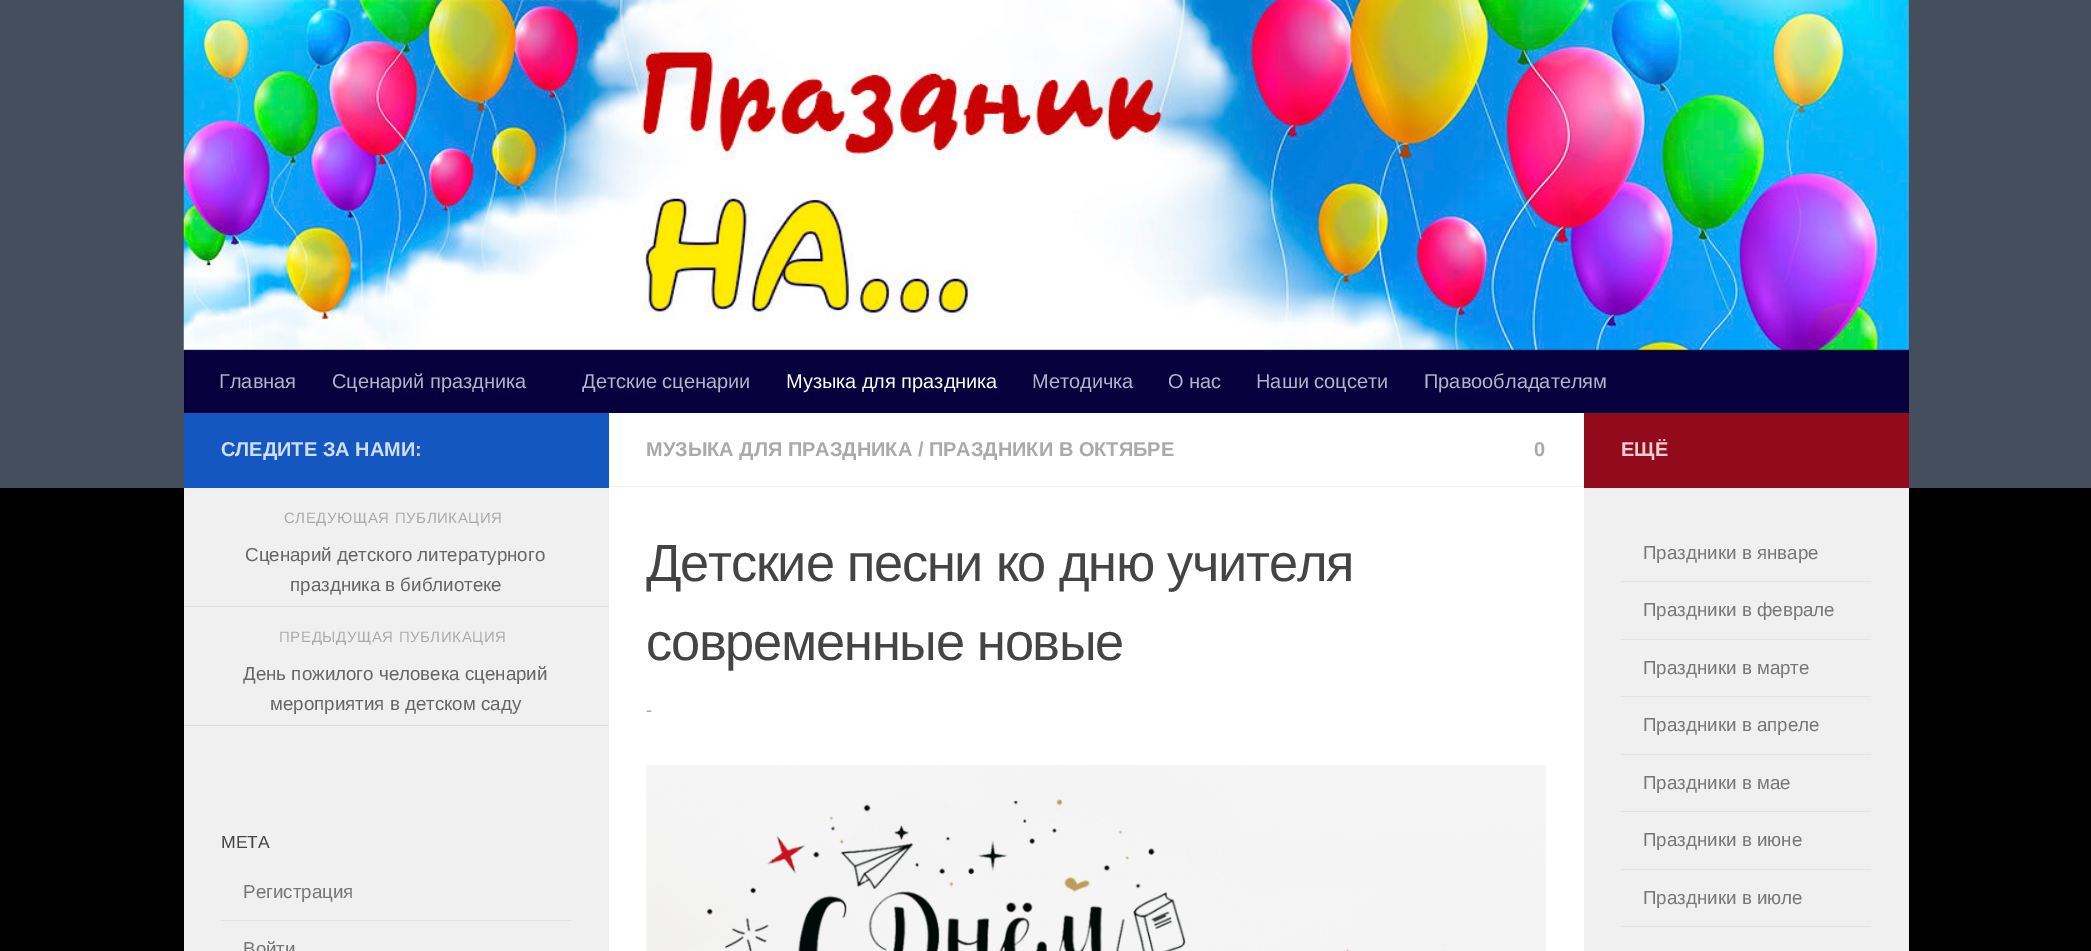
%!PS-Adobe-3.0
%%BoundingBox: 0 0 2091 951
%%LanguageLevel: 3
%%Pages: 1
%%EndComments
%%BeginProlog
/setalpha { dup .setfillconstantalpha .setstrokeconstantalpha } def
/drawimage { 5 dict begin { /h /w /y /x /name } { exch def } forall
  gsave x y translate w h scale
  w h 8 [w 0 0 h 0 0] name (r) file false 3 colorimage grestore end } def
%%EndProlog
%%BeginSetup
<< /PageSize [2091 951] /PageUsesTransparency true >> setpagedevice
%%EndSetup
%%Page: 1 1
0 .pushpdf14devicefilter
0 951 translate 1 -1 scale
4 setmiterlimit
0 setgray
0 0 2091 951 rectfill
0.271 0.306 0.361 setrgbcolor
0 0 2091 488 rectfill
(images/1.raw) 183 0 1726 350 drawimage
0.2 setalpha
0 setgray
newpath 184 349 moveto 184 350 lineto 1909 350 lineto 1909 411 lineto 1909 349 lineto closepath fill
1 setalpha
0.027 0 0.239 setrgbcolor
185 351 1723 62 rectfill
0.075 0.051 0.278 setrgbcolor
184 350 1725 1 rectfill
0.024 0 0.192 setrgbcolor
1908 350 1 63 rectfill
0.071 0.051 0.231 setrgbcolor
1908 350 1 1 rectfill
0.024 0 0.192 setrgbcolor
184 350 1 63 rectfill
0.071 0.051 0.231 setrgbcolor
184 350 1 1 rectfill
1 setgray
609 413 975 538 rectfill
0.082 0.341 0.757 setrgbcolor
184 413 425 75 rectfill
0.941 setgray
184 488 425 463 rectfill
0.867 setgray
184 606 425 1 rectfill
184 725 425 1 rectfill
0.894 setgray
221 920 350 1 rectfill
0.933 setgray
609 486 975 1 rectfill
(images/2.raw) 646 765 900 186 drawimage
0.576 0.039 0.11 setrgbcolor
1584 413 325 75 rectfill
0.941 setgray
1584 488 325 463 rectfill
0.894 setgray
1621 581 250 1 rectfill
1621 639 250 1 rectfill
1621 696 250 1 rectfill
1621 754 250 1 rectfill
1621 811 250 1 rectfill
1621 869 250 1 rectfill
1621 926 250 1 rectfill
/LiberationSans-Regular [20 0 0 -20 0 0] selectfont
0.71 0.702 0.773 setrgbcolor
219 388 moveto (Главная) show
332 388 moveto (Сценарий праздника) show
582 388 moveto (Детские сценарии) show
1 setgray
786 388 moveto (Музыка для праздника) show
0.71 0.702 0.773 setrgbcolor
1032 388 moveto (Методичка) show
1168 388 moveto (О нас) show
1256 388 moveto (Наши соцсети) show
1424 388 moveto (Правообладателям) show
/LiberationSans-Bold [20 0 0 -20 0 0] selectfont
0.816 0.867 0.953 setrgbcolor
221 456 moveto (СЛЕДИТЕ ЗА НАМИ:) show
/LiberationSans-Regular [15 0 0 -15 0 0] selectfont
0.667 setgray
284 523 moveto 0.6 0 (СЛЕДУЮЩАЯ ПУБЛИКАЦИЯ) ashow
/LiberationSans-Regular [18.75 0 0 -18.75 0 0] selectfont
0.4 setgray
245 561 moveto (Сценарий детского литературного) show
290 591 moveto (праздника в библиотеке) show
/LiberationSans-Regular [15 0 0 -15 0 0] selectfont
0.667 setgray
279 642 moveto 0.6 0 (ПРЕДЫДУЩАЯ ПУБЛИКАЦИЯ) ashow
/LiberationSans-Regular [18.75 0 0 -18.75 0 0] selectfont
0.4 setgray
243 680 moveto (День пожилого человека сценарий) show
270 710 moveto (мероприятия в детском саду) show
/LiberationSans-Regular [17.5 0 0 -17.5 0 0] selectfont
0.267 setgray
221 848 moveto (МЕТА) show
/LiberationSans-Regular [18.75 0 0 -18.75 0 0] selectfont
0.467 setgray
243 898 moveto (Регистрация) show
243 955 moveto (Войти) show
/LiberationSans-Bold [20 0 0 -20 0 0] selectfont
0.667 setgray
646 456 moveto (МУЗЫКА ДЛЯ ПРАЗДНИКА / ПРАЗДНИКИ В ОКТЯБРЕ) show
1534 456 moveto (0) show
/LiberationSans-Regular [52.4 0 0 -52.4 0 0] selectfont
0.267 setgray
646 581 moveto -1.25 0 (Детские песни ко дню учителя) ashow
646 660 moveto -1.25 0 (современные новые) ashow
/LiberationSans-Regular [18 0 0 -18 0 0] selectfont
0.667 setgray
646 716 moveto (-) show
/LiberationSans-Bold [20 0 0 -20 0 0] selectfont
0.914 0.808 0.824 setrgbcolor
1621 456 moveto (ЕЩЁ) show
/LiberationSans-Regular [18.75 0 0 -18.75 0 0] selectfont
0.467 setgray
1643 559 moveto (Праздники в январе) show
1643 616 moveto (Праздники в феврале) show
1643 674 moveto (Праздники в марте) show
1643 731 moveto (Праздники в апреле) show
1643 789 moveto (Праздники в мае) show
1643 846 moveto (Праздники в июне) show
1643 904 moveto (Праздники в июле) show
.poppdf14devicefilter showpage
%%EOF
